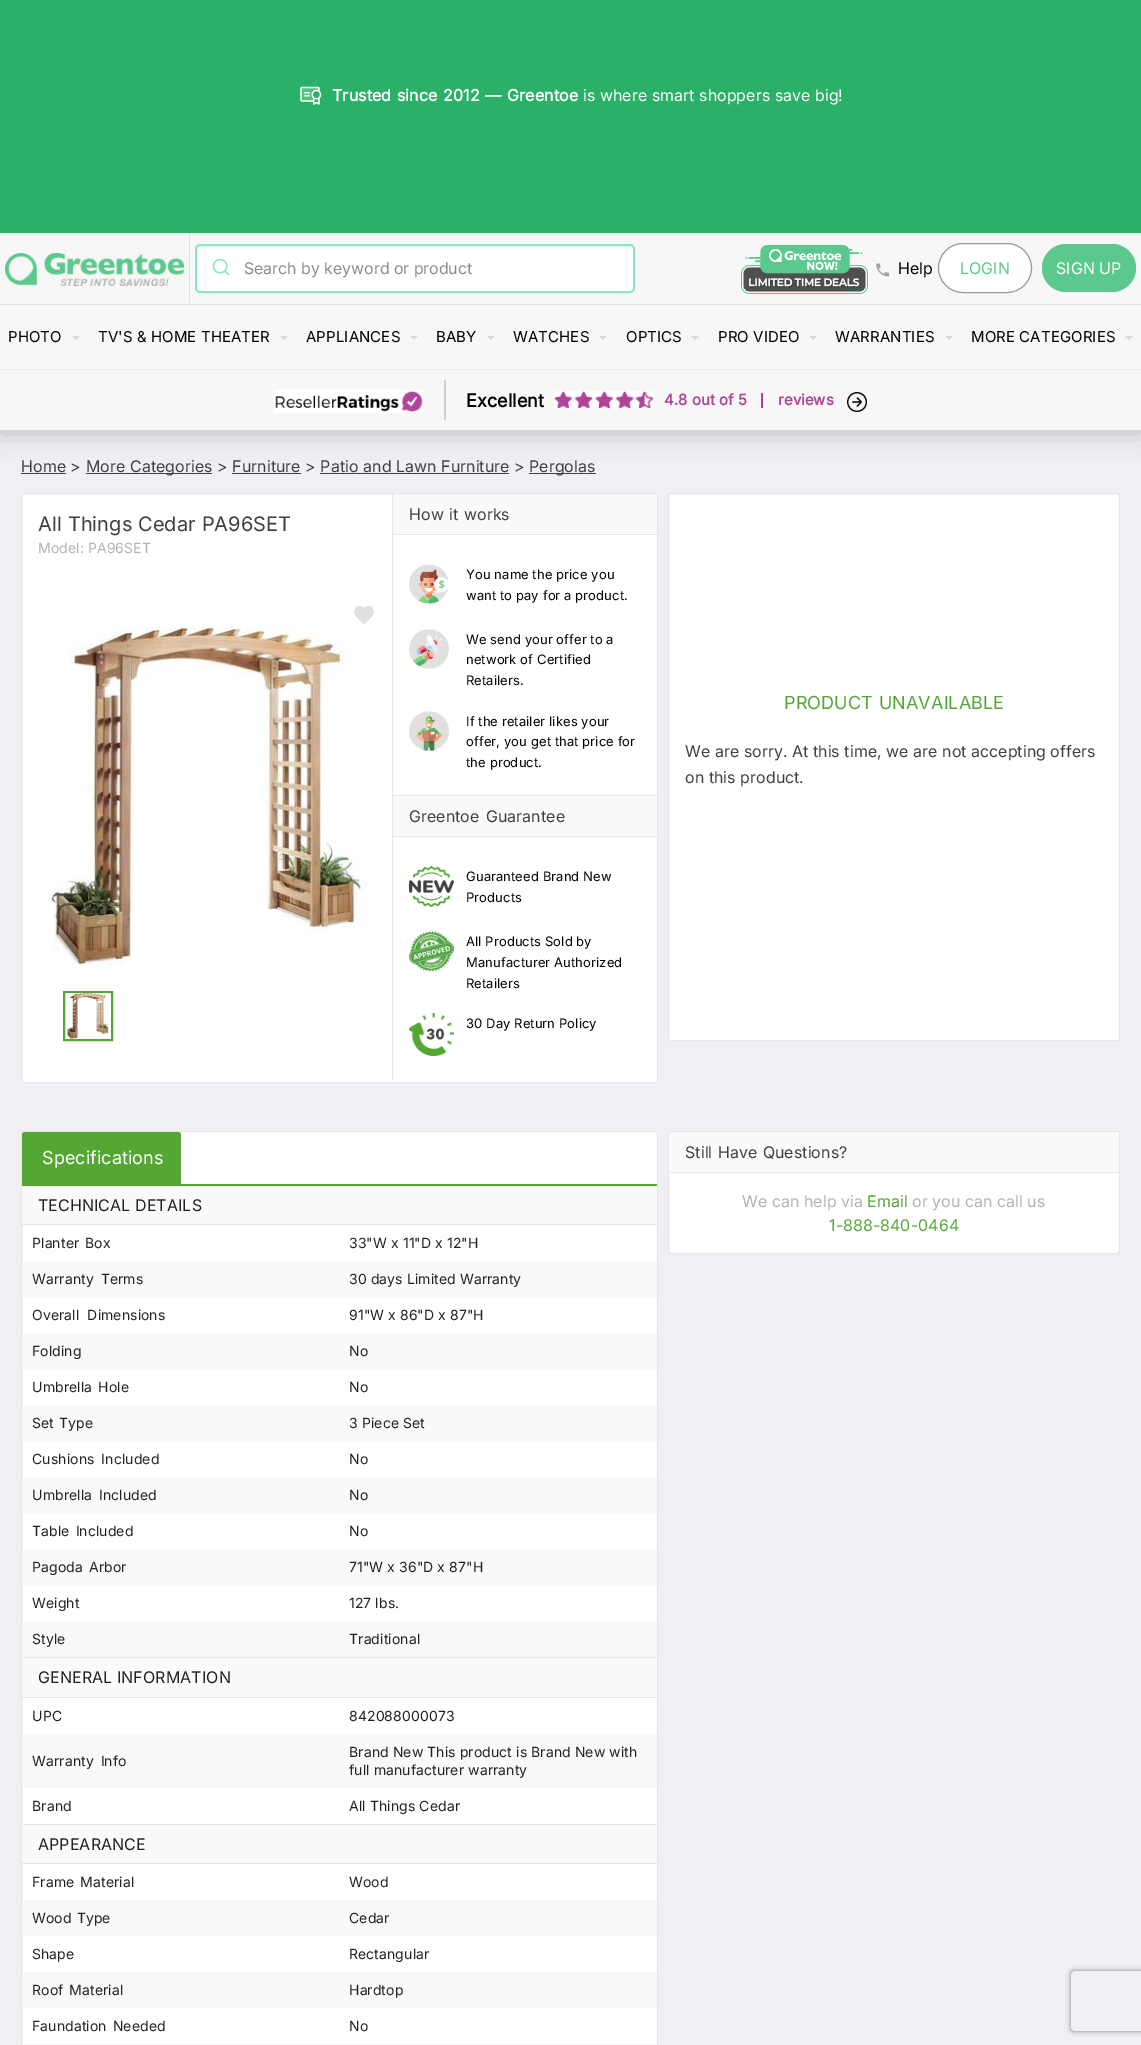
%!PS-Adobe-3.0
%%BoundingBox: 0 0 1141 2045
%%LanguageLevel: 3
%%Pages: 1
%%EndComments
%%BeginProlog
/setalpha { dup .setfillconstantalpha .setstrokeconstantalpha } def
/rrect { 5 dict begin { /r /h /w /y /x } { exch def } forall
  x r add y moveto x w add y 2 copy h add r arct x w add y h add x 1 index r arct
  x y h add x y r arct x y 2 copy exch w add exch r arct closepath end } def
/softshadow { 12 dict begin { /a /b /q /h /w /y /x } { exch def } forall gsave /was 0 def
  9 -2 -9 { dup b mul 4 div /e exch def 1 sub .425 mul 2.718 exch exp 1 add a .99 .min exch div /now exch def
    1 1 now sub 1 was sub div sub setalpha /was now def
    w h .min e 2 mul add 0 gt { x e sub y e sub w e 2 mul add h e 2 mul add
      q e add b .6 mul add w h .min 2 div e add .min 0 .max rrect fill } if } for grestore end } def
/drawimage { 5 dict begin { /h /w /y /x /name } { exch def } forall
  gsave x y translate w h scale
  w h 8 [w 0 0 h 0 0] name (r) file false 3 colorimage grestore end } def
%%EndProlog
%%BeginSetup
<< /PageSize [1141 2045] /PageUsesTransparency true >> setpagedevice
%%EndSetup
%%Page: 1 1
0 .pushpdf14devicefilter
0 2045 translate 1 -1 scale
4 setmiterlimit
0.937 0.937 0.957 setrgbcolor
0 0 1141 2045 rectfill
0.741 setgray
0 -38 1141 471 0 12.5 1 softshadow
0.973 0.969 0.969 setrgbcolor
0 233 1141 197 rectfill
0.169 0.69 0.404 setrgbcolor
0 0 1141 233 rectfill
(images/1.raw) 300 86 22 19 drawimage
0.886 0.882 0.882 setrgbcolor
0 304 1141 1 rectfill
189 233 1 70 rectfill
(images/2.raw) 5 253 179 33 drawimage
1 setgray
196 245 438 47 4 rrect gsave fill grestore
0.549 0.906 0.792 setrgbcolor
2 setlinewidth
stroke
(images/3.raw) 212 258 18 18 drawimage
(images/4.raw) 741 245 127 49 drawimage
(images/5.raw) 876 263 14 14 drawimage
1 setgray
938 243 94 50 25 rrect fill
0.4 setalpha
0 setgray
1 setlinewidth
938.5 243.5 93 49 24.5 rrect stroke
1 setalpha
0.357 0.788 0.553 setrgbcolor
1042 244 94 48 24 rrect fill
(images/6.raw) 72 336 8 4 drawimage
(images/6.raw) 280 336 8 4 drawimage
(images/6.raw) 410 336 8 4 drawimage
(images/6.raw) 487 336 8 4 drawimage
(images/6.raw) 599 336 8 4 drawimage
(images/6.raw) 691 336 8 4 drawimage
(images/6.raw) 809 336 8 4 drawimage
(images/6.raw) 945 336 8 4 drawimage
(images/6.raw) 1125 336 8 4 drawimage
0.922 setgray
0 369 1141 1 rectfill
(images/7.raw) 274 390 150 23 drawimage
0.812 setgray
444 380 2 40 rectfill
(images/8.raw) 554 391 100 18 drawimage
0.675 0.263 0.588 setrgbcolor
761 393 2 15 rectfill
(images/9.raw) 847 392 20 20 drawimage
0.243 0.251 0.259 setrgbcolor
21 473 45 1 rectfill
86 473 126 1 rectfill
529 473 67 1 rectfill
232 473 69 1 rectfill
320 473 189 1 rectfill
1 setgray
21.5 493.5 636 589 2.5 rrect gsave fill grestore
0.902 setgray
stroke
(images/10.raw) 354 606 20 18 drawimage
(images/11.raw) 49 627 318 339 drawimage
0.333 0.655 0.208 setrgbcolor
2 setlinewidth
64 992 48 48 rectstroke
(images/12.raw) 66 993 44 46 drawimage
1 setgray
655 494 2 2 rectfill
0.902 setgray
392 795 265 1 rectfill
392 494 1 586 rectfill
0.98 setgray
newpath 396 494 moveto 654 494 lineto 655.5 494 657 495.5 657 497 curveto 657 535 lineto 393 535 lineto 393 497 lineto 393 495.5 394.5 494 396 494 curveto closepath fill
0.902 setgray
393 534 264 1 rectfill
(images/13.raw) 409 564 40 40 drawimage
(images/14.raw) 409 629 40 40 drawimage
(images/15.raw) 409 711 40 40 drawimage
0.98 setgray
newpath 396 796 moveto 654 796 lineto 655.5 796 657 797.5 657 799 curveto 657 837 lineto 393 837 lineto 393 799 lineto 393 797.5 394.5 796 396 796 curveto closepath fill
0.902 setgray
393 836 264 1 rectfill
(images/16.raw) 409 866 45 41 drawimage
(images/17.raw) 409 931 45 41 drawimage
(images/18.raw) 409 1013 45 43 drawimage
1 setgray
668.5 493.5 451 547 2.5 rrect gsave fill grestore
0.902 setgray
1 setlinewidth
stroke
1 setgray
21.5 1131.5 636 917 2.5 rrect gsave fill grestore
0.902 setgray
stroke
0.333 0.655 0.208 setrgbcolor
22 1184 635 2 rectfill
newpath 25 1132 moveto 178 1132 lineto 179.5 1132 181 1133.5 181 1135 curveto 181 1184 lineto 22 1184 lineto 22 1135 lineto 22 1133.5 23.5 1132 25 1132 curveto closepath fill
newpath 25 1132 moveto 23 1133 lineto 24 1134 lineto 25 1132 72 1133 76 1133 curveto 178 1133 lineto 179 1134 lineto 180 1133 lineto 178 1132 lineto closepath fill
gsave
22 1132 159 52 rectclip
newpath 181 1184 moveto 181 1178 182 1135 180 1133 curveto 179 1134 lineto 181 1135 180 1177 180 1183 curveto closepath fill
grestore
newpath 22 1184 moveto 23 1183 lineto 23 1177 22 1135 24 1134 curveto 23 1133 lineto 22 1135 lineto closepath fill
0.98 setgray
newpath 25 1186 moveto 654 1186 lineto 655.5 1186 657 1187.5 657 1189 curveto 657 1225 lineto 22 1225 lineto 22 1189 lineto 22 1187.5 23.5 1186 25 1186 curveto closepath fill
0.902 setgray
22 1224 635 1 rectfill
0.976 setgray
22 1261 635 36 rectfill
22 1333 635 36 rectfill
22 1405 635 36 rectfill
22 1477 635 36 rectfill
22 1549 635 36 rectfill
22 1621 635 36 rectfill
0.98 setgray
newpath 25 1657 moveto 654 1657 lineto 655.5 1657 657 1658.5 657 1660 curveto 657 1698 lineto 22 1698 lineto 22 1660 lineto 22 1658.5 23.5 1657 25 1657 curveto closepath fill
0.902 setgray
24 1657 632 1 rectfill
22 1697 635 1 rectfill
0.976 setgray
22 1734 635 54 rectfill
0.98 setgray
newpath 25 1824 moveto 654 1824 lineto 655.5 1824 657 1825.5 657 1827 curveto 657 1864 lineto 22 1864 lineto 22 1827 lineto 22 1825.5 23.5 1824 25 1824 curveto closepath fill
0.902 setgray
24 1824 632 1 rectfill
22 1863 635 1 rectfill
0.976 setgray
22 1900 635 36 rectfill
22 1972 635 36 rectfill
22 2044 635 1 rectfill
1 setgray
668.5 1131.5 451 122 2.5 rrect gsave fill grestore
0.902 setgray
stroke
0.98 setgray
newpath 672 1132 moveto 1116 1132 lineto 1117.5 1132 1119 1133.5 1119 1135 curveto 1119 1173 lineto 669 1173 lineto 669 1135 lineto 669 1133.5 670.5 1132 672 1132 curveto closepath fill
0.902 setgray
669 1172 450 1 rectfill
gsave
newpath 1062 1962 moveto 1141 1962 lineto 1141 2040 lineto 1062 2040 lineto closepath 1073 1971 moveto 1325 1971 lineto 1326 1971 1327 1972 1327 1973 curveto 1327 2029 lineto 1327 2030 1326 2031 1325 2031 curveto 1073 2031 lineto 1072 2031 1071 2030 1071 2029 curveto 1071 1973 lineto 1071 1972 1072 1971 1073 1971 curveto closepath eoclip newpath
0.502 setgray
1071 1971 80 60 2 2.5 1 softshadow
grestore
/Inter-Bold [16 0 0 -16 0 0] selectfont
1 setgray
332 101 moveto 1 0 32 0.1 0 (Trusted since 2012 — Greentoe) awidthshow
/Inter-Regular [16 0 0 -16 0 0] selectfont
583 101 moveto 0.1 0 (is where smart shoppers save big!) ashow
0.545 setgray
244 274 moveto (Search by keyword or product) show
0 setgray
898 274 moveto 0.1 0 (Help) ashow
0.357 0.788 0.553 setrgbcolor
960 274 moveto 0.1 0 (LOGIN) ashow
1 setgray
1056 274 moveto 0.1 0 (SIGN UP) ashow
/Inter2-Regular [15 0 0 -15 0 0] selectfont
0 setgray
8 342 moveto 0.1 0 (PHOTO) ashow
98 342 moveto 0.1 0 (TV'S & HOME THEATER) ashow
306 342 moveto 0.1 0 (APPLIANCES) ashow
436 342 moveto 0.1 0 (BABY) ashow
513 342 moveto 0.1 0 (WATCHES) ashow
626 342 moveto 0.1 0 (OPTICS) ashow
718 342 moveto 0.1 0 (PRO VIDEO) ashow
835 342 moveto 0.1 0 (WARRANTIES) ashow
971 342 moveto 0.1 0 (MORE CATEGORIES) ashow
/Inter-Bold [18 0 0 -18 0 0] selectfont
466 407 moveto 0.1 0 (Excellent) ashow
/Inter2-Bold [15 0 0 -15 0 0] selectfont
0.675 0.263 0.588 setrgbcolor
664 405 moveto 0.1 0 (4.8 out of 5) ashow
778 405 moveto 0.1 0 (reviews) ashow
/Inter-Regular [16 0 0 -16 0 0] selectfont
0.243 0.251 0.259 setrgbcolor
21 472 moveto 0.1 0 (Home >) ashow
86 472 moveto 0.1 0 (More Categories > Furniture > Patio and Lawn Furniture >) ashow
529 472 moveto 0.1 0 (Pergolas) ashow
/Inter2-Regular [20 0 0 -20 0 0] selectfont
38 531 moveto 0.1 0 (All Things Cedar PA96SET) ashow
/Inter2-Regular [14 0 0 -14 0 0] selectfont
0.69 0.702 0.71 setrgbcolor
38 553 moveto 0.1 0 (Model: PA96SET) ashow
/Inter-Regular [16 0 0 -16 0 0] selectfont
0.243 0.251 0.259 setrgbcolor
409 520 moveto 1 0 32 0.1 0 (How it works) awidthshow
/Inter2-Regular [13 0 0 -13 0 0] selectfont
0 setgray
466 579 moveto 0.1 0 (You name the price you) ashow
466 600 moveto 0.1 0 (want to pay for a product.) ashow
466 644 moveto 0.1 0 (We send your offer to a) ashow
466 664 moveto 0.1 0 (network of Certified) ashow
466 685 moveto 0.1 0 (Retailers.) ashow
466 726 moveto 0.1 0 (If the retailer likes your) ashow
466 746 moveto 0.1 0 (offer, you get that price for) ashow
466 767 moveto 0.1 0 (the product.) ashow
/Inter-Regular [16 0 0 -16 0 0] selectfont
0.243 0.251 0.259 setrgbcolor
409 822 moveto 2 0 32 0.1 0 (Greentoe Guarantee) awidthshow
/Inter2-Regular [13 0 0 -13 0 0] selectfont
0 setgray
466 881 moveto 0.1 0 (Guaranteed Brand New) ashow
466 902 moveto 0.1 0 (Products) ashow
466 946 moveto 0.1 0 (All Products Sold by) ashow
466 967 moveto 0.1 0 (Manufacturer Authorized) ashow
466 988 moveto 0.1 0 (Retailers) ashow
466 1028 moveto 0.1 0 (30 Day Return Policy) ashow
/Inter2-Regular [18 0 0 -18 0 0] selectfont
0.333 0.655 0.208 setrgbcolor
784 709 moveto 1 0 32 0.1 0 (PRODUCT UNAVAILABLE) awidthshow
/Inter-Regular [16 0 0 -16 0 0] selectfont
0.243 0.251 0.259 setrgbcolor
685 757 moveto 0.1 0 (We are sorry. At this time, we are not accepting offers) ashow
685 783 moveto 0.1 0 (on this product.) ashow
/Inter2-Regular [18 0 0 -18 0 0] selectfont
1 setgray
42 1164 moveto 0.1 0 (Specifications) ashow
/Inter2-Regular [16 0 0 -16 0 0] selectfont
0.133 setgray
38 1211 moveto 0.1 0 (TECHNICAL DETAILS) ashow
/Inter2-Regular [14 0 0 -14 0 0] selectfont
32 1248 moveto 2 0 32 0.1 0 (Planter Box) awidthshow
349 1248 moveto 0.1 0 (33"W x 11"D x 12"H) ashow
32 1284 moveto 3 0 32 0.1 0 (Warranty Terms) awidthshow
349 1284 moveto 0.1 0 (30 days Limited Warranty) ashow
32 1320 moveto 4 0 32 0.1 0 (Overall Dimensions) awidthshow
349 1320 moveto 0.1 0 (91"W x 86"D x 87"H) ashow
32 1356 moveto 0.1 0 (Folding) ashow
349 1356 moveto 0.1 0 (No) ashow
32 1392 moveto 2 0 32 0.1 0 (Umbrella Hole) awidthshow
349 1392 moveto 0.1 0 (No) ashow
32 1428 moveto 1 0 32 0.1 0 (Set Type) awidthshow
349 1428 moveto 0.1 0 (3 Piece Set) ashow
32 1464 moveto 3 0 32 0.1 0 (Cushions Included) awidthshow
349 1464 moveto 0.1 0 (No) ashow
32 1500 moveto 3 0 32 0.1 0 (Umbrella Included) awidthshow
349 1500 moveto 0.1 0 (No) ashow
32 1536 moveto 2 0 32 0.1 0 (Table Included) awidthshow
349 1536 moveto 0.1 0 (No) ashow
32 1572 moveto 2 0 32 0.1 0 (Pagoda Arbor) awidthshow
349 1572 moveto 0.1 0 (71"W x 36"D x 87"H) ashow
32 1608 moveto 0.1 0 (Weight) ashow
349 1608 moveto 0.1 0 (127 lbs.) ashow
32 1644 moveto 0.1 0 (Style) ashow
349 1644 moveto 0.1 0 (Traditional) ashow
/Inter2-Regular [16 0 0 -16 0 0] selectfont
38 1683 moveto 0.1 0 (GENERAL INFORMATION) ashow
/Inter2-Regular [14 0 0 -14 0 0] selectfont
32 1721 moveto 0.1 0 (UPC) ashow
349 1721 moveto 0.1 0 (842088000073) ashow
32 1766 moveto 3 0 32 0.1 0 (Warranty Info) awidthshow
349 1757 moveto 0.1 0 (Brand New This product is Brand New with) ashow
349 1775 moveto 0.1 0 (full manufacturer warranty) ashow
32 1811 moveto 0.1 0 (Brand) ashow
349 1811 moveto 0.1 0 (All Things Cedar) ashow
/Inter2-Regular [16 0 0 -16 0 0] selectfont
38 1850 moveto 0.1 0 (APPEARANCE) ashow
/Inter2-Regular [14 0 0 -14 0 0] selectfont
32 1887 moveto 2 0 32 0.1 0 (Frame Material) awidthshow
349 1887 moveto 0.1 0 (Wood) ashow
32 1923 moveto 1 0 32 0.1 0 (Wood Type) awidthshow
349 1923 moveto 0.1 0 (Cedar) ashow
32 1959 moveto 0.1 0 (Shape) ashow
349 1959 moveto 0.1 0 (Rectangular) ashow
32 1995 moveto 2 0 32 0.1 0 (Roof Material) awidthshow
349 1995 moveto 0.1 0 (Hardtop) ashow
32 2031 moveto 2 0 32 0.1 0 (Faundation Needed) awidthshow
349 2031 moveto 0.1 0 (No) ashow
/Inter-Regular [16 0 0 -16 0 0] selectfont
0.243 0.251 0.259 setrgbcolor
685 1158 moveto 1 0 32 0.1 0 (Still Have Questions?) awidthshow
0.69 0.702 0.71 setrgbcolor
742 1207 moveto 0.1 0 (We can help via) ashow
0.333 0.655 0.208 setrgbcolor
867 1207 moveto 0.1 0 (Email) ashow
0.69 0.702 0.71 setrgbcolor
912 1207 moveto 0.1 0 (or you can call us) ashow
0.333 0.655 0.208 setrgbcolor
829 1231 moveto 0.1 0 (1-888-840-0464) ashow
.poppdf14devicefilter showpage
%%EOF
